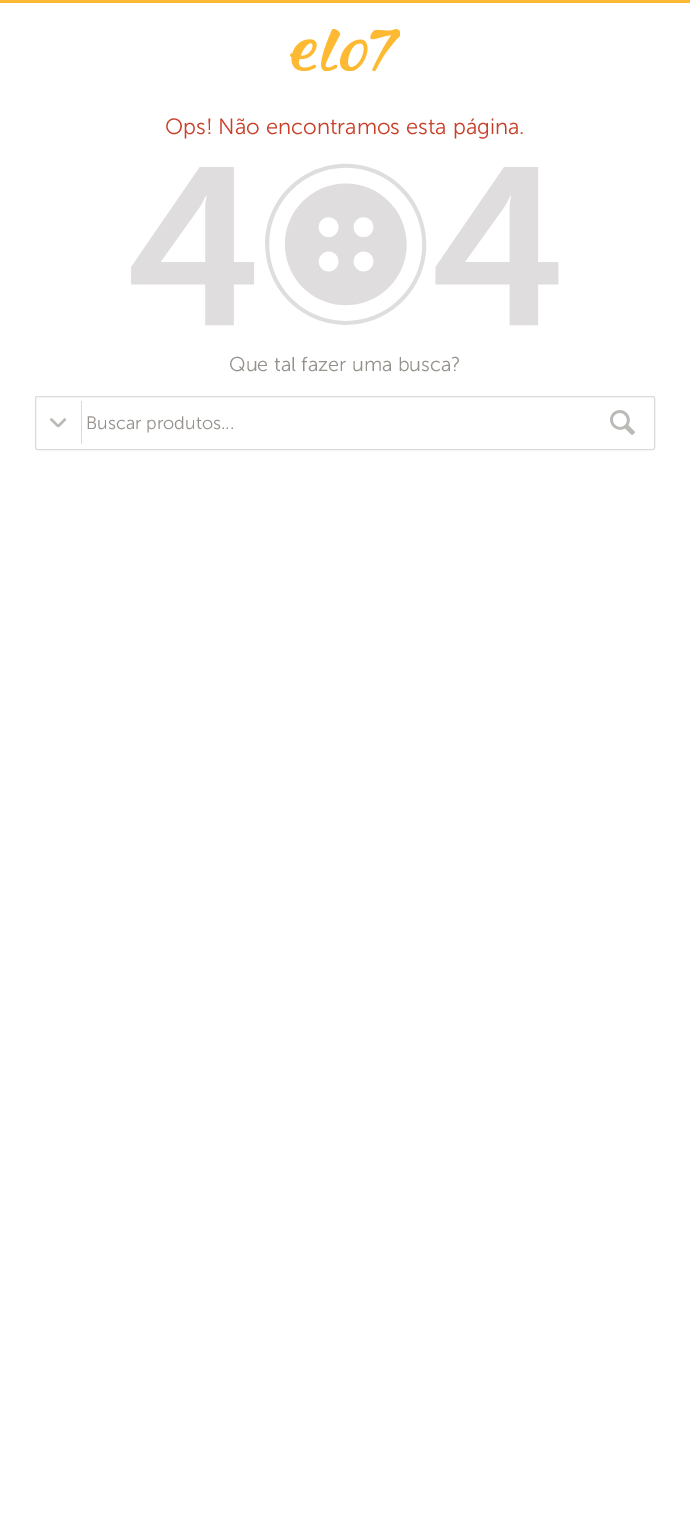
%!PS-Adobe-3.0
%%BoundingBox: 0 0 690 1520
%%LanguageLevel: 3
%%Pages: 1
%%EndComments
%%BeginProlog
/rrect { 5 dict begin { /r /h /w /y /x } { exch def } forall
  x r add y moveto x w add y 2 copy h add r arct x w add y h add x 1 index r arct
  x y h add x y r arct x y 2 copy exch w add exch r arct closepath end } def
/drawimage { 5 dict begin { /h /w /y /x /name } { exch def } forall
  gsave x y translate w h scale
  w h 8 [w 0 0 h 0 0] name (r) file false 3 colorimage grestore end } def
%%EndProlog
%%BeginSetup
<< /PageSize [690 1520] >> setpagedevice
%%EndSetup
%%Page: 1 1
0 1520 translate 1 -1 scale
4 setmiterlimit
1 setgray
0 0 690 1520 rectfill
0.992 0.725 0.2 setrgbcolor
0 0 690 3 rectfill
(images/1.raw) 290 29 110 42 drawimage
(images/2.raw) 131 163 428 163 drawimage
0.855 setgray
35.5 396.5 619 53 2 rrect stroke
(images/3.raw) 50 418 16 10 drawimage
81 401 1 43 rectfill
(images/4.raw) 610 410 25 25 drawimage
/MuseoSans-Light [22 0 0 -22 0 0] selectfont
0.784 0.243 0.153 setrgbcolor
165 134 moveto (Ops! Não encontramos esta página.) show
/MuseoSans-Light [20 0 0 -20 0 0] selectfont
0.584 0.569 0.553 setrgbcolor
229 371 moveto (Que tal fazer uma busca?) show
/MuseoSans-Light [18 0 0 -18 0 0] selectfont
86 429 moveto (Buscar produtos...) show
showpage
%%EOF
